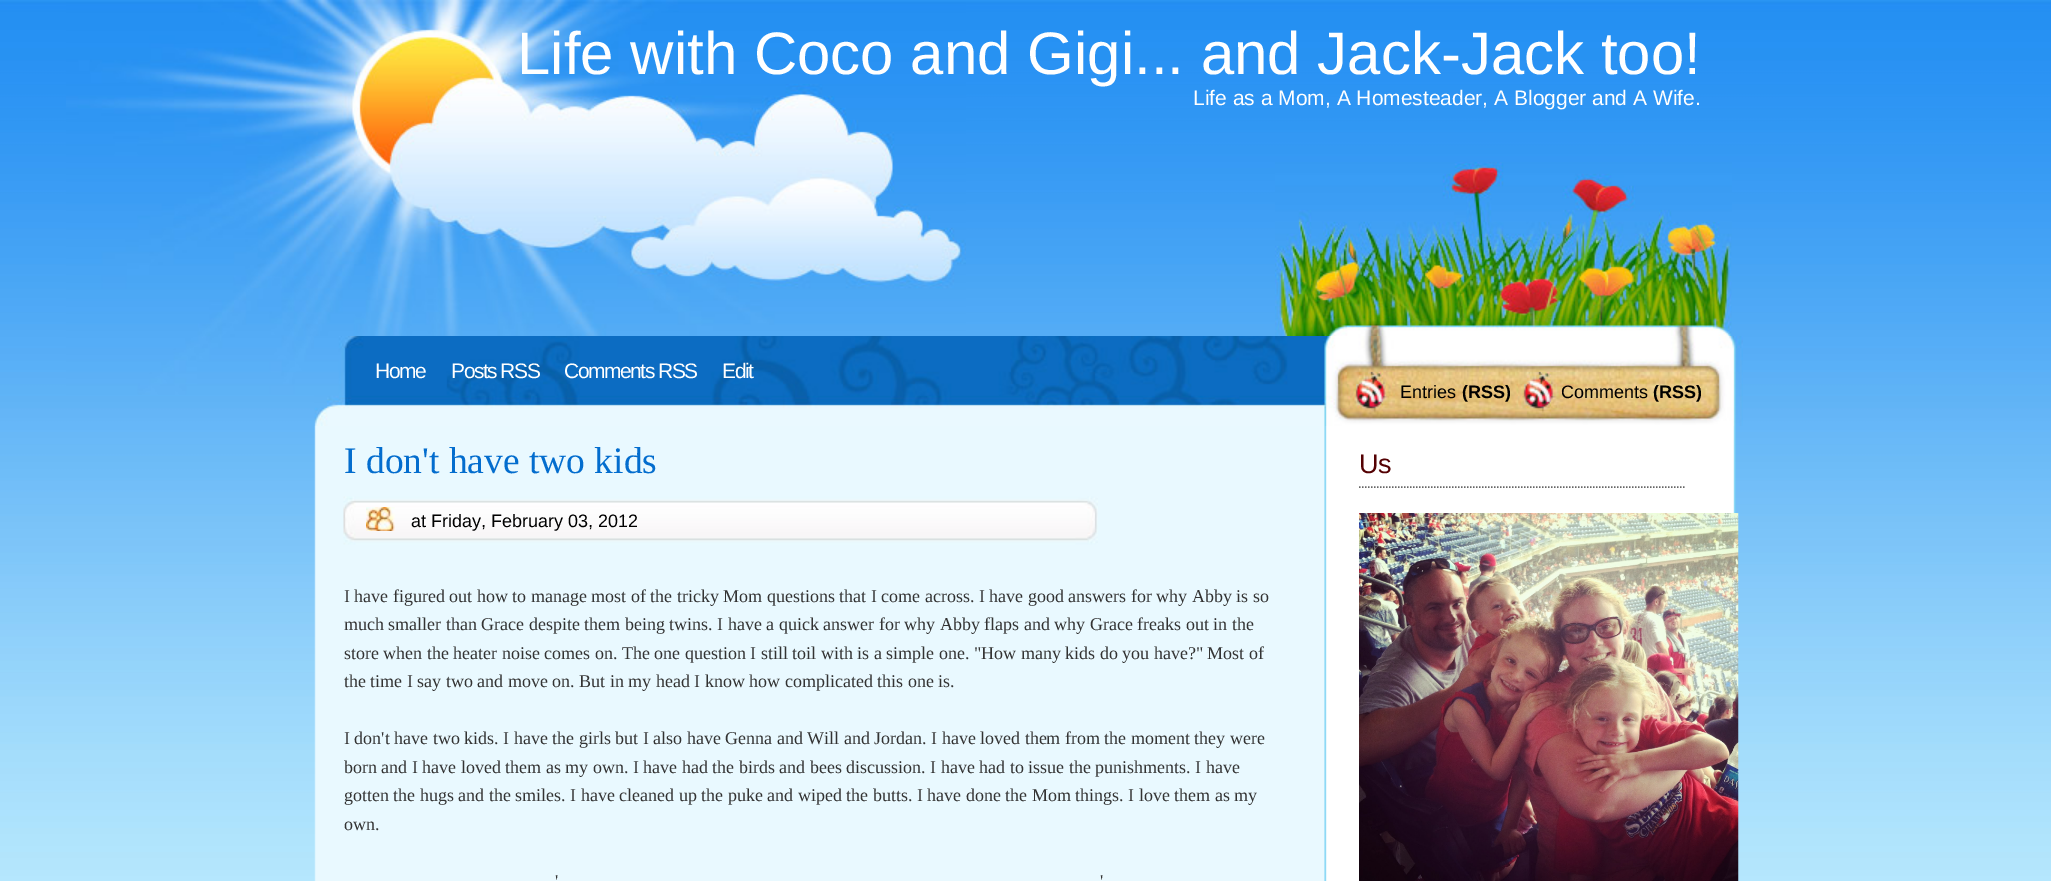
%!PS-Adobe-3.0
%%BoundingBox: 0 0 2051 881
%%LanguageLevel: 3
%%Pages: 1
%%EndComments
%%BeginProlog
/drawimage { 5 dict begin { /h /w /y /x /name } { exch def } forall
  gsave x y translate w h scale
  w h 8 [w 0 0 h 0 0] name (r) file false 3 colorimage grestore end } def
%%EndProlog
%%BeginSetup
<< /PageSize [2051 881] >> setpagedevice
%%EndSetup
%%Page: 1 1
0 881 translate 1 -1 scale
4 setmiterlimit
1 setgray
0 0 2051 881 rectfill
(images/1.raw) 0 0 2051 881 drawimage
(images/2.raw) 66 0 900 395 drawimage
(images/3.raw) 1275 162 457 174 drawimage
(images/4.raw) 314 336 1429 90 drawimage
(images/5.raw) 314 426 1422 455 drawimage
(images/6.raw) 343 496 755 49 drawimage
(images/7.raw) 366 507 29 24 drawimage
0.4 setgray
1.5 setlinewidth
[1.5 1.5] 0 setdash
newpath 1359 487 moveto 1684.5 487 lineto stroke
(images/8.raw) 1359 513 380 368 drawimage
/LiberationSans-Regular [60 0 0 -60 0 0] selectfont
1 setgray
517 74 moveto (Life with Coco and Gigi... and Jack-Jack too!) show
/LiberationSans-Regular [21 0 0 -21 0 0] selectfont
1193 105 moveto (Life as a Mom, A Homesteader, A Blogger and A Wife.) show
375 378 moveto -1.5 0 (Home) ashow
451 378 moveto -1.5 0 (Posts RSS) ashow
564 378 moveto -1.5 0 (Comments RSS) ashow
722 378 moveto -1.5 0 (Edit) ashow
/LiberationSans-Regular [18 0 0 -18 0 0] selectfont
0 setgray
1400 398 moveto (Entries) show
/LiberationSans-Bold [18 0 0 -18 0 0] selectfont
1462 398 moveto (\(RSS\)) show
/LiberationSans-Regular [18 0 0 -18 0 0] selectfont
1561 398 moveto (Comments) show
/LiberationSans-Bold [18 0 0 -18 0 0] selectfont
1653 398 moveto (\(RSS\)) show
/LiberationSerif-Regular [37.5 0 0 -37.5 0 0] selectfont
0.012 0.427 0.808 setrgbcolor
344 473 moveto (I don't have two kids) show
/LiberationSans-Regular [18 0 0 -18 0 0] selectfont
0 setgray
411 527 moveto (at Friday, February 03, 2012) show
/LiberationSerif-Regular [18 0 0 -18 0 0] selectfont
0.2 setgray
344 602 moveto (I have figured out how to manage most of the tricky Mom questions that I come across. I have good answers for why Abby is so) show
344 630 moveto (much smaller than Grace despite them being twins. I have a quick answer for why Abby flaps and why Grace freaks out in the) show
344 659 moveto (store when the heater noise comes on. The one question I still toil with is a simple one. "How many kids do you have?" Most of) show
344 687 moveto (the time I say two and move on. But in my head I know how complicated this one is.) show
344 744 moveto (I don't have two kids. I have the girls but I also have Genna and Will and Jordan. I have loved them from the moment they were) show
344 773 moveto (born and I have loved them as my own. I have had the birds and bees discussion. I have had to issue the punishments. I have) show
344 801 moveto (gotten the hugs and the smiles. I have cleaned up the puke and wiped the butts. I have done the Mom things. I love them as my) show
344 830 moveto (own.) show
555 887 moveto (') show
1100 887 moveto (') show
/LiberationSans-Regular [27 0 0 -27 0 0] selectfont
0.329 0.004 0.012 setrgbcolor
1359 473 moveto (Us) show
showpage
%%EOF
